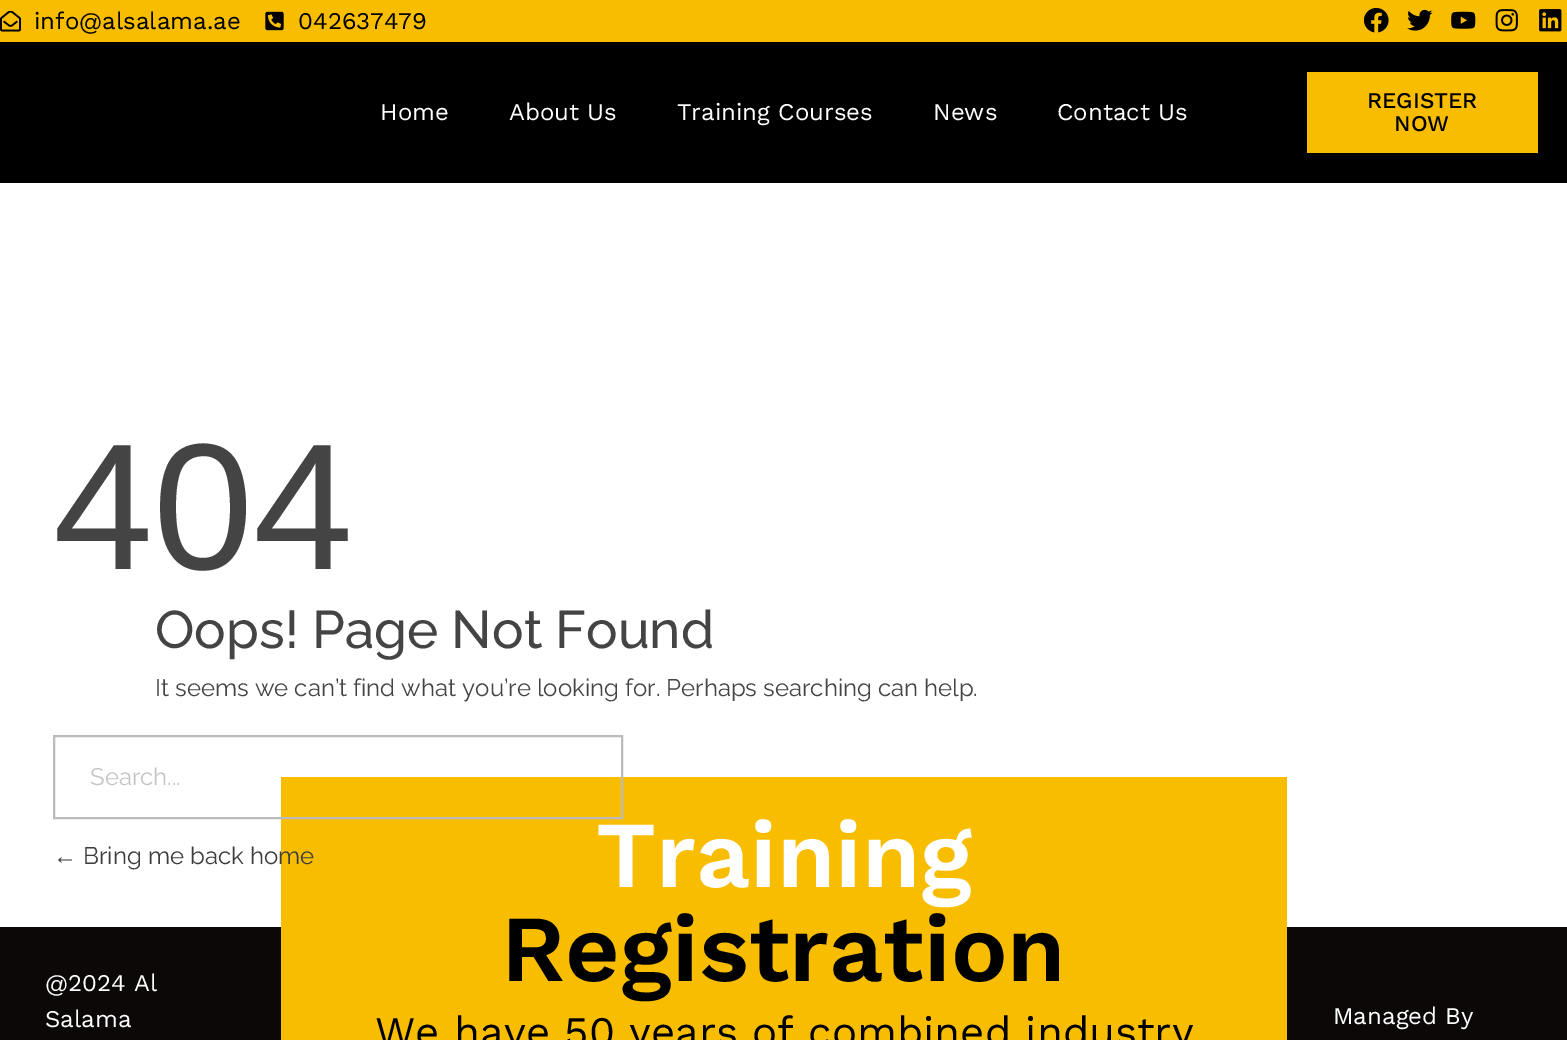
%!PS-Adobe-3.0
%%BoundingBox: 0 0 1567 1040
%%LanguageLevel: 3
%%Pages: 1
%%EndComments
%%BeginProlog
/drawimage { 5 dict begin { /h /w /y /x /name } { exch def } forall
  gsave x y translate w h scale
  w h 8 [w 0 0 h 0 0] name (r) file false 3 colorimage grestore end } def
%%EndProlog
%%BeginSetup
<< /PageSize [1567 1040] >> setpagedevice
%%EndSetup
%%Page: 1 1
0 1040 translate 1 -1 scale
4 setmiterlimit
1 setgray
0 0 1567 1040 rectfill
0.976 0.741 0 setrgbcolor
0 0 1567 42 rectfill
(images/1.raw) 0 11 21 21 drawimage
(images/2.raw) 265 11 19 20 drawimage
(images/3.raw) 1364 8 25 25 drawimage
(images/4.raw) 1407 9 26 22 drawimage
(images/5.raw) 1451 11 25 18 drawimage
(images/6.raw) 1495 9 23 23 drawimage
(images/7.raw) 1539 9 23 23 drawimage
0 setgray
0 42 1567 141 rectfill
0.976 0.741 0 setrgbcolor
1307 72 231 81 rectfill
0.047 0.031 0.031 setrgbcolor
0 927 1567 113 rectfill
0.976 0.741 0 setrgbcolor
281 777 1006 263 rectfill
0.733 setgray
2 setlinewidth
54 736 568 82 rectstroke
/WorkSans-Regular [24 0 0 -24 0 0] selectfont
0 setgray
34 29 moveto (info@alsalama.ae) show
298 29 moveto (042637479) show
1 setgray
380 120 moveto (Home) show
509 120 moveto (About Us) show
677 120 moveto (Training Courses) show
933 120 moveto (News) show
1057 120 moveto (Contact Us) show
/WorkSans-Medium [22.5 0 0 -22.5 0 0] selectfont
0 setgray
1367 108 moveto (REGISTER) show
1394 131 moveto (NOW) show
/LiberationSans-Regular [180 0 0 -180 0 0] selectfont
0.267 setgray
53 569 moveto (404) show
/Raleway-Medium [52.75 0 0 -52.75 0 0] selectfont
155 648 moveto (Oops! Page Not Found) show
/Raleway-Regular [24 0 0 -24 0 0] selectfont
155 696 moveto (It seems we can’t find what you’re looking for. Perhaps searching can help.) show
0.773 setgray
90 785 moveto (Search...) show
/LiberationSans-Regular [24 0 0 -24 0 0] selectfont
0.239 setgray
53 864 moveto (←) show
/Raleway-Regular [24 0 0 -24 0 0] selectfont
83 864 moveto (Bring me back home) show
/WorkSans-Regular [24 0 0 -24 0 0] selectfont
1 setgray
45 991 moveto (@2024 Al) show
45 1027 moveto (Salama) show
/WorkSans-SemiBold [94.5 0 0 -94.5 0 0] selectfont
596 887 moveto (Training) show
0 setgray
501 981 moveto (Registration) show
/WorkSans-Regular [42 0 0 -42 0 0] selectfont
375 1046 moveto (We have 50 years of combined industry) show
/WorkSans-Regular [24 0 0 -24 0 0] selectfont
1 setgray
1333 1024 moveto (Managed By) show
showpage
%%EOF
